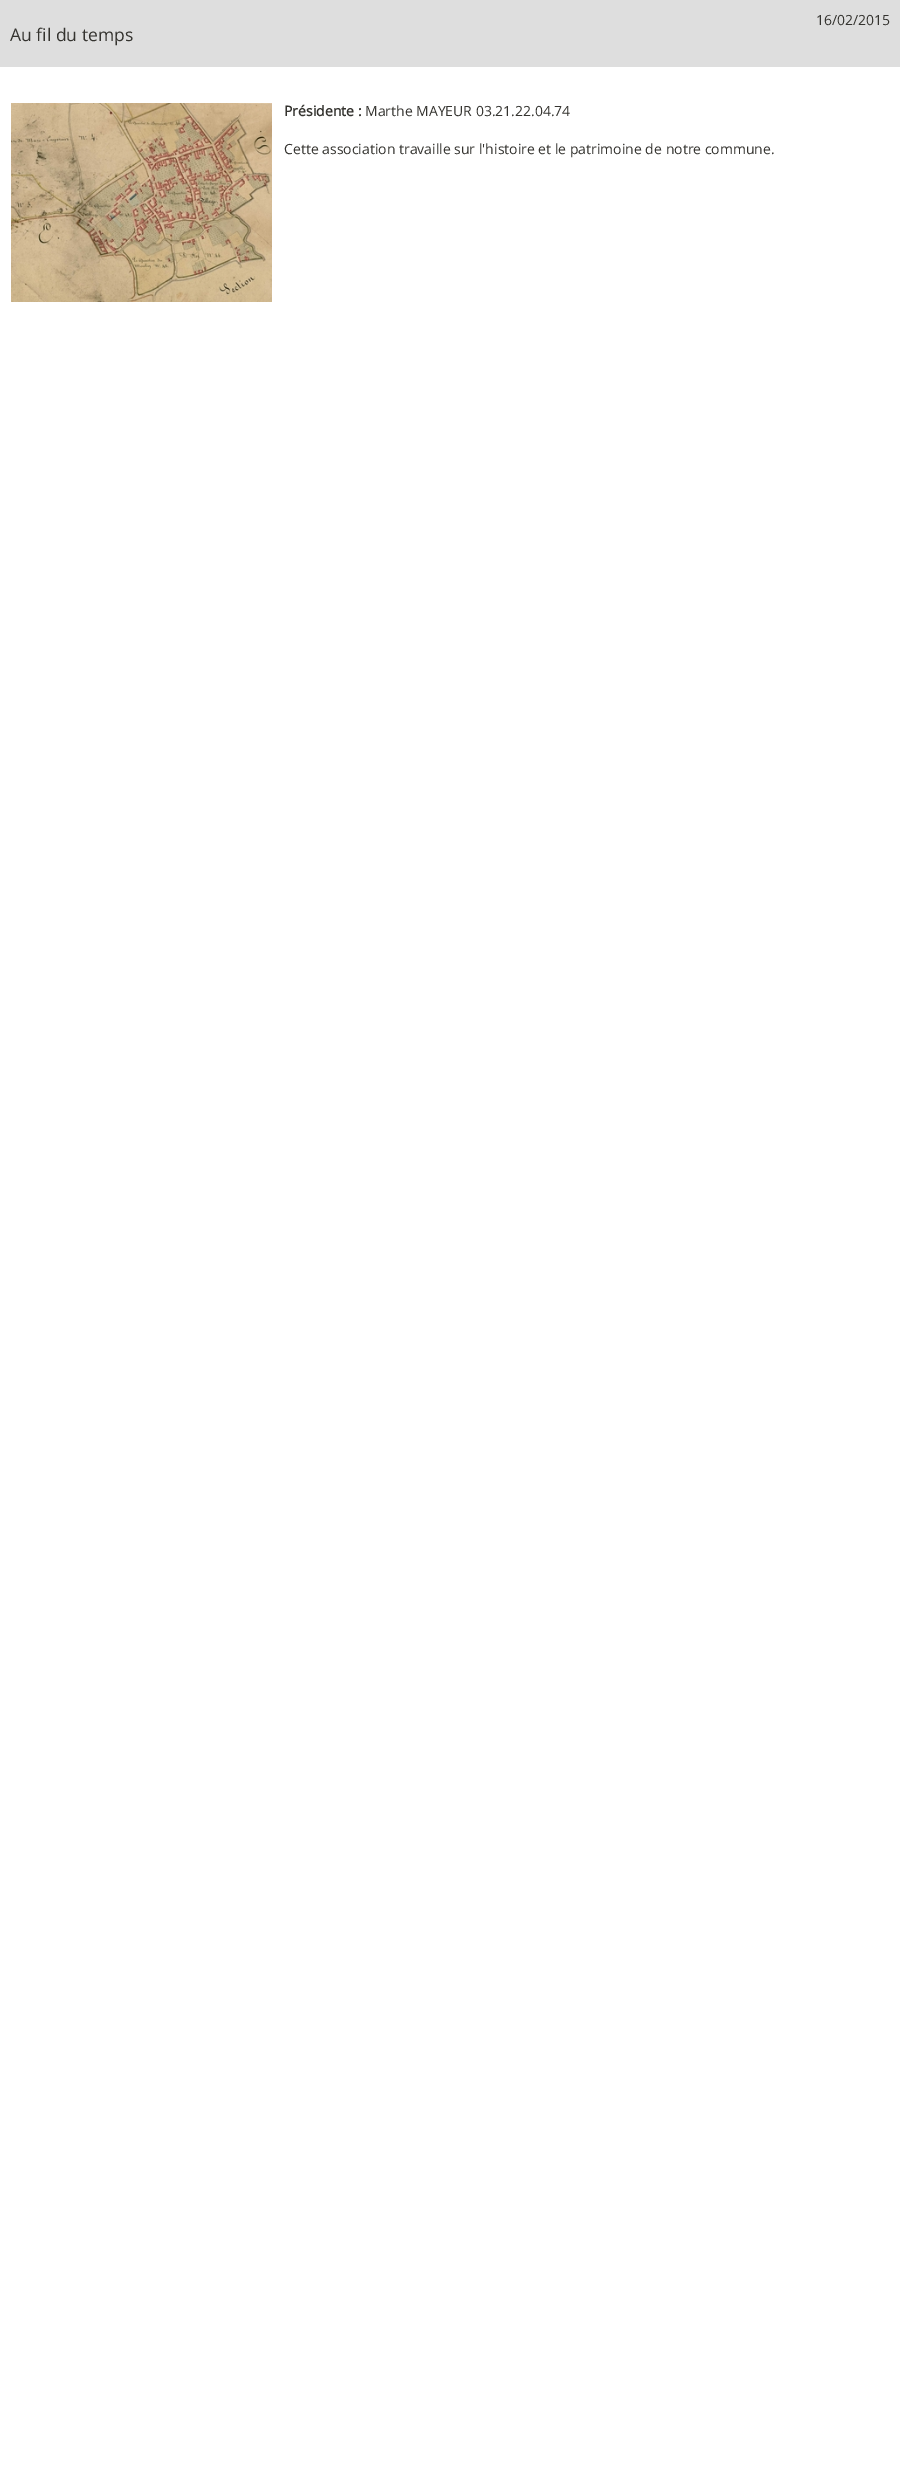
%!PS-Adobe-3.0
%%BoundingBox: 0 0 900 2480
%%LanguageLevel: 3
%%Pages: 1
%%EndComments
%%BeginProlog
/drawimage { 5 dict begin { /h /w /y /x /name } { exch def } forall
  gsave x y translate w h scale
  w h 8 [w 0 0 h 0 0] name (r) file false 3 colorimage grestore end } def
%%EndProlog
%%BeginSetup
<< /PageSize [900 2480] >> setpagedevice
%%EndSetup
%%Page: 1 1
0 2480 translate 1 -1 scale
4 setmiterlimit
1 setgray
0 0 900 2480 rectfill
0.871 setgray
0 0 900 67 rectfill
(images/1.raw) 11 103 261 199 drawimage
/OpenSans-Regular [14 0 0 -14 0 0] selectfont
0.204 0.2 0.184 setrgbcolor
816 25 moveto (16/02/2015) show
/OpenSans-Regular [17.5 0 0 -17.5 0 0] selectfont
10 41 moveto (Au fil du temps) show
/OpenSans-Bold [14 0 0 -14 0 0] selectfont
284 116 moveto (Présidente :) show
/OpenSans-Regular [14 0 0 -14 0 0] selectfont
365 116 moveto (Marthe MAYEUR 03.21.22.04.74) show
284 154 moveto (Cette association travaille sur l'histoire et le patrimoine de notre commune.) show
showpage
%%EOF
